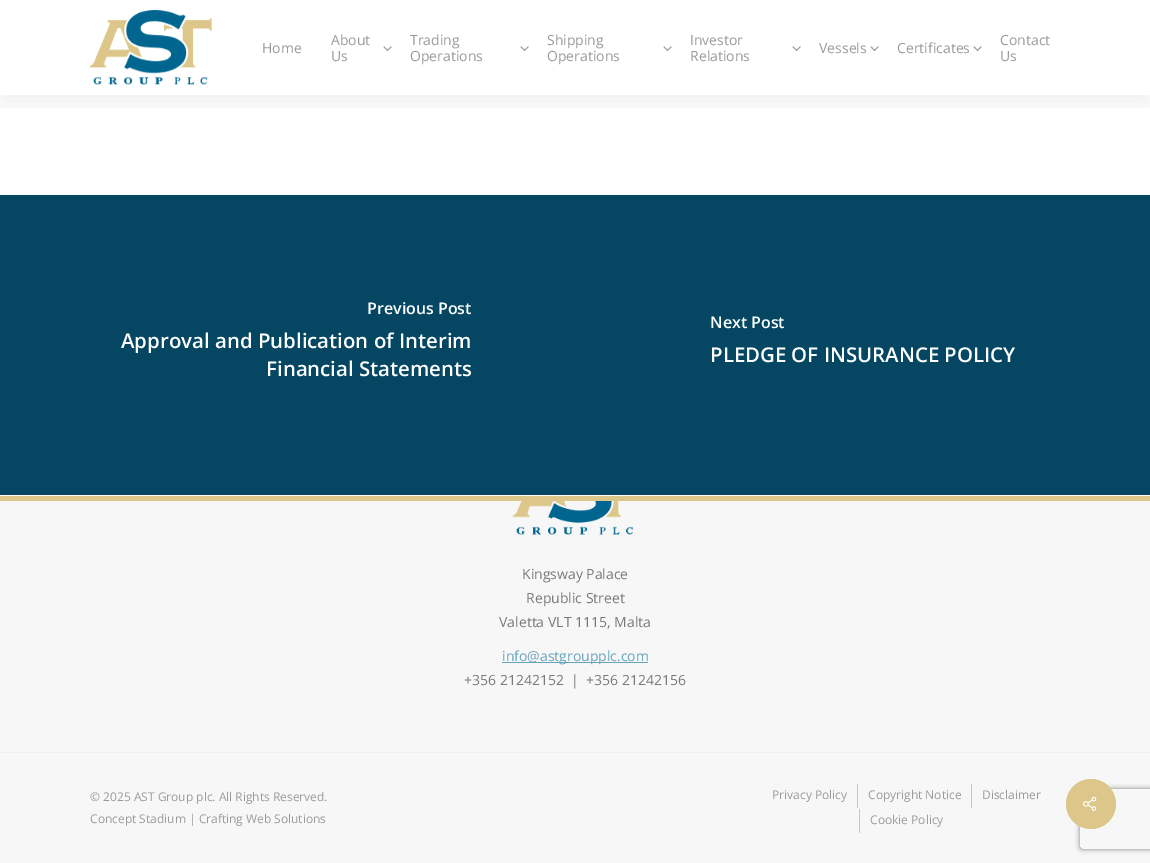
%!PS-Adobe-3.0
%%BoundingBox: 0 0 1150 863
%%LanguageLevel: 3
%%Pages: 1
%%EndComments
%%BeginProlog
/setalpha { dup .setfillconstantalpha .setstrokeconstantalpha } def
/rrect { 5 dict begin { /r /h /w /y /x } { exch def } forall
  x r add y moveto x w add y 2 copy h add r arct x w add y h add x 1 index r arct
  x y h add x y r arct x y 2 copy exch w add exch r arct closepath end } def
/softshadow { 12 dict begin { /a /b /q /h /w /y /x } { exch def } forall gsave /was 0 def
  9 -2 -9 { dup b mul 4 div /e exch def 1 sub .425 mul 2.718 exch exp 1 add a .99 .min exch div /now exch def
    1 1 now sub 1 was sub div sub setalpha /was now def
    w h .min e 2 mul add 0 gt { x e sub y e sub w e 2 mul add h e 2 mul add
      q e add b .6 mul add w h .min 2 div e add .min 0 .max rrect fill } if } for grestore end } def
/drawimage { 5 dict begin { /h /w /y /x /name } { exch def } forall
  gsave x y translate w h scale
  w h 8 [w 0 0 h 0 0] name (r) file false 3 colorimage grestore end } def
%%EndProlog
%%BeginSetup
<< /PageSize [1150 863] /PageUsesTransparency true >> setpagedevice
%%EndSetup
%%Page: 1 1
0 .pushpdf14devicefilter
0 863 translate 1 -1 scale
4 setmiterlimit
0.969 setgray
0 0 1150 863 rectfill
1 setgray
0 0 1150 496 rectfill
gsave
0 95 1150 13 rectclip
0 setgray
0 10 1150 95 0 10 0.05 softshadow
grestore
(images/1.raw) 90 10 122 75 drawimage
(images/2.raw) 383 46 9 6 drawimage
(images/2.raw) 520 46 9 6 drawimage
(images/2.raw) 663 46 9 6 drawimage
(images/3.raw) 792 46 9 6 drawimage
(images/3.raw) 870 46 9 6 drawimage
(images/2.raw) 973 46 9 6 drawimage
0.867 0.776 0.537 setrgbcolor
0 496 1150 5 rectfill
0.02 0.278 0.384 setrgbcolor
0 195 1150 300 rectfill
(images/4.raw) 512 501 121 34 drawimage
0.4 0.639 0.737 setrgbcolor
502 662 146 1 rectfill
0.933 setgray
0 752 1150 1 rectfill
0.867 0.776 0.537 setrgbcolor
857 784 1 24 rectfill
971 784 1 24 rectfill
859 809 1 24 rectfill
gsave
newpath 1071 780 moveto 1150 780 lineto 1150 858 lineto 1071 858 lineto closepath 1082 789 moveto 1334 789 lineto 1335 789 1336 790 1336 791 curveto 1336 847 lineto 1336 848 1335 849 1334 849 curveto 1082 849 lineto 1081 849 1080 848 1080 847 curveto 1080 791 lineto 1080 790 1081 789 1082 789 curveto closepath eoclip newpath
0.502 setgray
1080 789 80 60 2 2.5 1 softshadow
grestore
newpath 1091 804 25 0 360 arc closepath fill
(images/5.raw) 1083 796 14 15 drawimage
/OpenSans-Regular [14 0 0 -14 0 0] selectfont
0.608 0.604 0.608 setrgbcolor
262 53 moveto (Home) show
331 45 moveto (About) show
331 61 moveto (Us) show
410 45 moveto (Trading) show
410 61 moveto (Operations) show
547 45 moveto (Shipping) show
547 61 moveto (Operations) show
690 45 moveto (Investor) show
690 61 moveto (Relations) show
819 53 moveto (Vessels) show
897 53 moveto (Certificates) show
1000 45 moveto (Contact) show
1000 61 moveto (Us) show
/OpenSans-SemiBold [16 0 0 -16 0 0] selectfont
1 setgray
367 314 moveto (Previous Post) show
/OpenSans-SemiBold [20.4 0 0 -20.4 0 0] selectfont
121 348 moveto (Approval and Publication of Interim) show
266 376 moveto (Financial Statements) show
/OpenSans-SemiBold [16 0 0 -16 0 0] selectfont
710 328 moveto (Next Post) show
/OpenSans-SemiBold [20.4 0 0 -20.4 0 0] selectfont
710 362 moveto (PLEDGE OF INSURANCE POLICY) show
/OpenSans-Regular [14 0 0 -14 0 0] selectfont
0.478 0.475 0.475 setrgbcolor
522 579 moveto (Kingsway Palace) show
526 603 moveto (Republic Street) show
499 627 moveto (Valetta VLT 1115, Malta) show
0.4 0.639 0.737 setrgbcolor
502 661 moveto (info@astgroupplc.com) show
0.478 0.475 0.475 setrgbcolor
464 685 moveto (+356 21242152) show
571 685 moveto (|) show
586 685 moveto (+356 21242156) show
/OpenSans-Regular [12 0 0 -12 0 0] selectfont
0.608 0.604 0.608 setrgbcolor
90 801 moveto (© 2025 AST Group plc. All Rights Reserved.) show
90 823 moveto (Concept Stadium | Crafting Web Solutions) show
772 799 moveto (Privacy Policy) show
868 799 moveto (Copyright Notice) show
982 799 moveto (Disclaimer) show
870 824 moveto (Cookie Policy) show
.poppdf14devicefilter showpage
%%EOF
